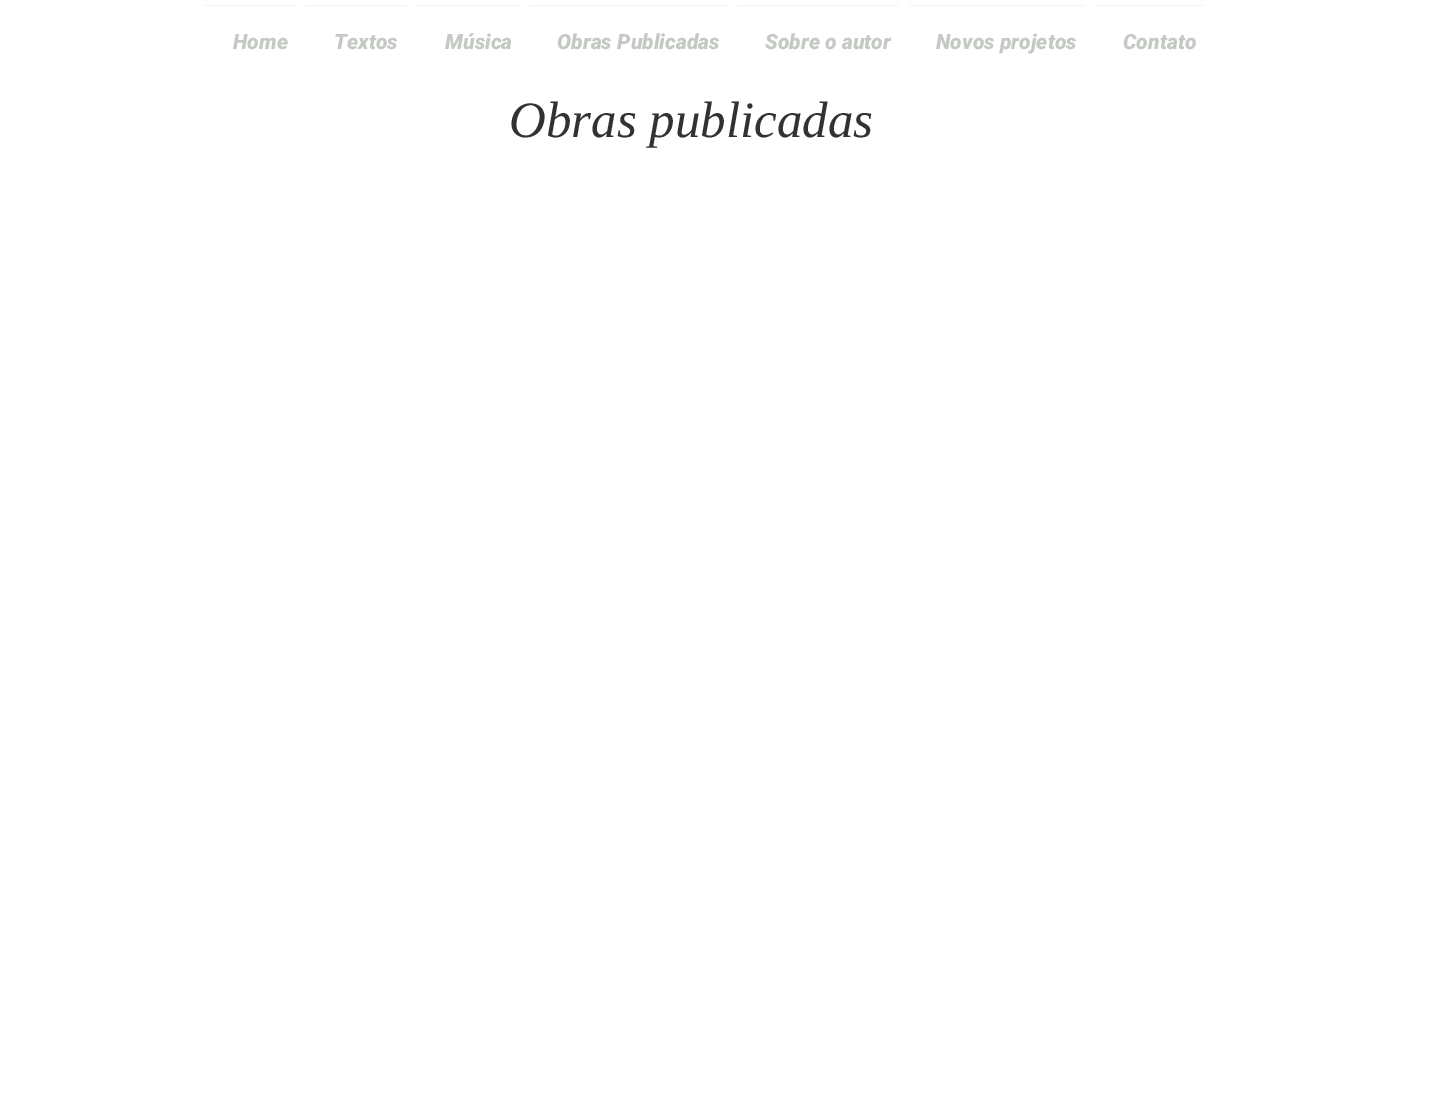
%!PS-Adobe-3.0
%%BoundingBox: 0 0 1438 1097
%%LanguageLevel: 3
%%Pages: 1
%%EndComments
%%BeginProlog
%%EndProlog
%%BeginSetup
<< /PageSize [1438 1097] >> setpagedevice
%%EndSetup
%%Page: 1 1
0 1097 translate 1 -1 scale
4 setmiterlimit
1 setgray
0 0 1438 1097 rectfill
0.953 setgray
204 5 92 1 rectfill
306 5 100 1 rectfill
416 5 104 1 rectfill
530 5 198 1 rectfill
738 5 161 1 rectfill
909 5 176 1 rectfill
1095 5 109 1 rectfill
/Roboto-BlackItalic [21 0 0 -21 0 0] selectfont
0.769 0.788 0.765 setrgbcolor
233 49 moveto (Home) show
334 49 moveto (Textos) show
445 49 moveto (Música) show
557 49 moveto (Obras Publicadas) show
765 49 moveto (Sobre o autor) show
936 49 moveto (Novos projetos) show
1123 49 moveto (Contato) show
/LiberationSerif-Italic [51 0 0 -51 0 0] selectfont
0.192 0.196 0.192 setrgbcolor
509 137 moveto (Obras publicadas) show
showpage
%%EOF
